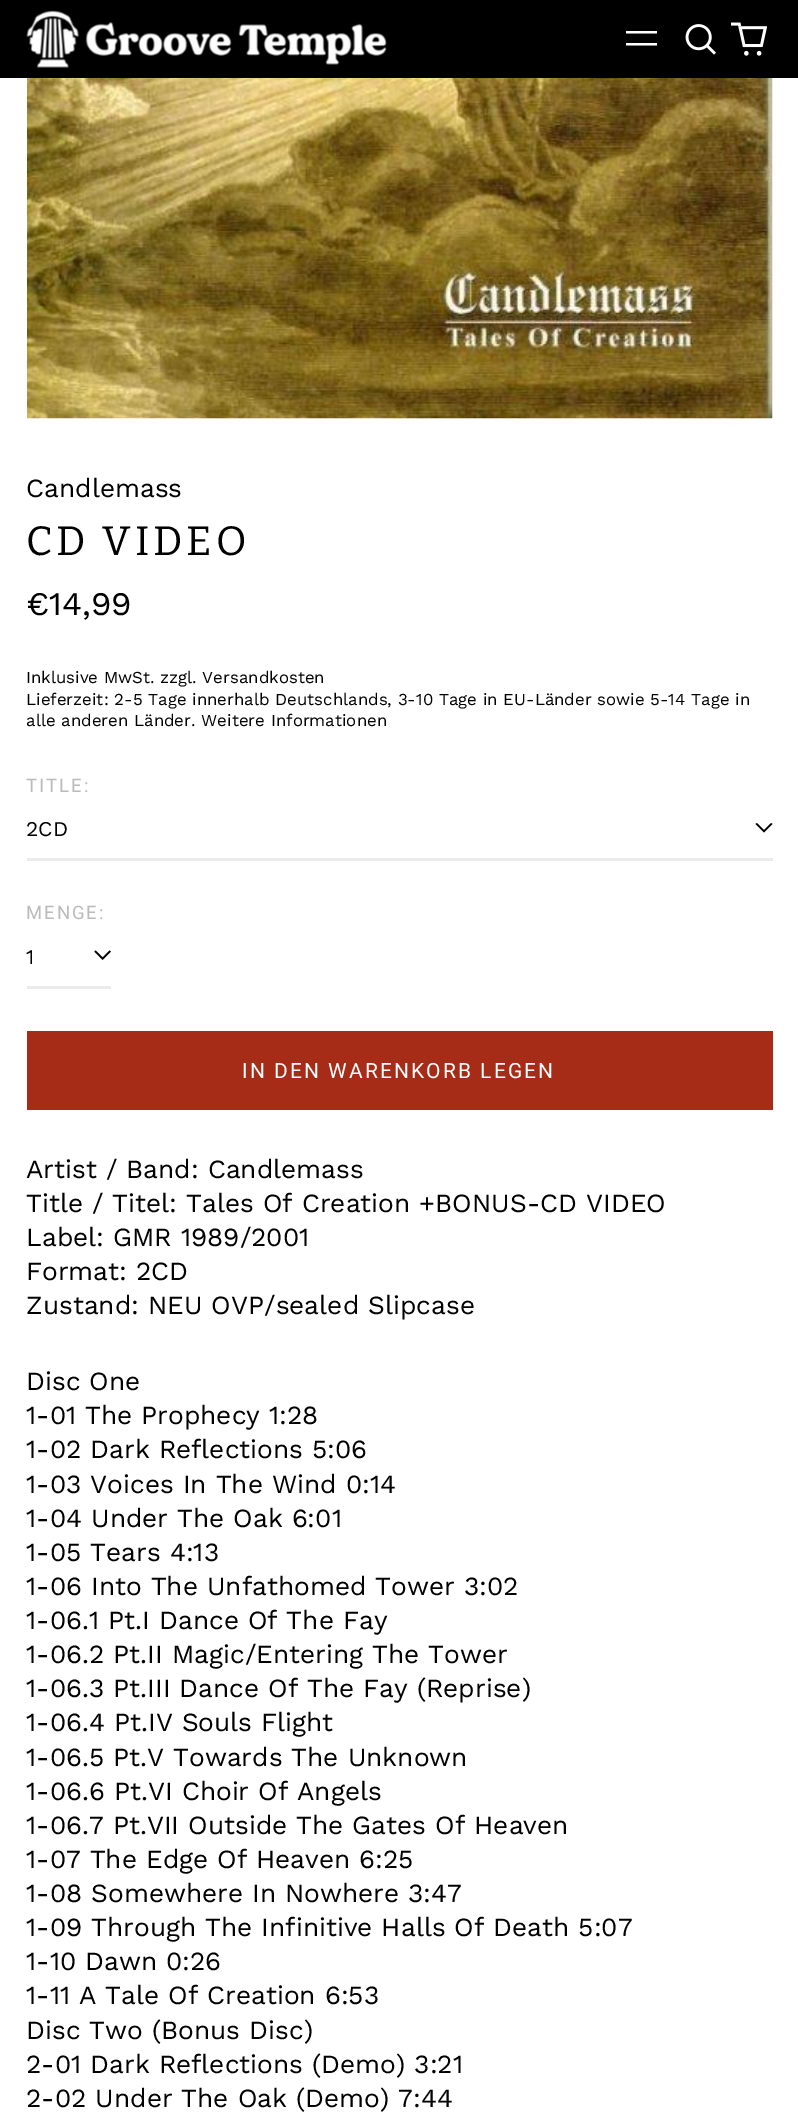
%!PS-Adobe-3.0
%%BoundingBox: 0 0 798 2113
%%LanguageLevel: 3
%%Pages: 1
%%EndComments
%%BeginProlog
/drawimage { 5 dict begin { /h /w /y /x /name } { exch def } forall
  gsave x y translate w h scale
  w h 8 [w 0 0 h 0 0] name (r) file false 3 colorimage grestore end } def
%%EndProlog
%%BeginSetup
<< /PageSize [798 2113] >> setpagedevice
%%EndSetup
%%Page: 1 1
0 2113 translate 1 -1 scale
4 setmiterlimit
1 setgray
0 0 798 2113 rectfill
0 setgray
0 0 798 78 rectfill
(images/1.raw) 26 10 361 58 drawimage
gsave
626 23 31 31 rectclip
1 setgray
newpath 657 43 moveto 657 45.5 lineto 625.5 45.5 lineto 625.5 43 lineto closepath 657 31 moveto 657 33.5 lineto 625.5 33.5 lineto 625.5 31 lineto closepath eofill
grestore
(images/2.raw) 685 24 31 31 drawimage
(images/3.raw) 731 22 36 34 drawimage
(images/4.raw) 27 78 746 341 drawimage
newpath 771 823 moveto 772.5 824 lineto 764 832.5 lineto 755.5 824 lineto 757 823 lineto 764 830 lineto closepath eofill
0.922 setgray
27 858 746 3 rectfill
(images/5.raw) 94 950 17 10 drawimage
27 986 84 3 rectfill
0.655 0.173 0.09 setrgbcolor
27 1031 746 79 rectfill
/WorkSans-Regular [26.25 0 0 -26.25 0 0] selectfont
0 setgray
26 497 moveto (Candlemass) show
/Bitter-Regular [41 0 0 -41 0 0] selectfont
26 555 moveto 4 0 (CD VIDEO) ashow
/WorkSans-Regular [33 0 0 -33 0 0] selectfont
26 615 moveto (€14,99) show
/WorkSans-Regular [16.8 0 0 -16.8 0 0] selectfont
26 683 moveto (Inklusive MwSt. zzgl. Versandkosten) show
26 705 moveto (Lieferzeit: 2-5 Tage innerhalb Deutschlands, 3-10 Tage in EU-Länder sowie 5-14 Tage in) show
26 726 moveto (alle anderen Länder. Weitere Informationen) show
/Roboto-Regular [18.5 0 0 -18.5 0 0] selectfont
0.733 setgray
26 792 moveto 2 0 (TITLE:) ashow
/WorkSans-Regular [21 0 0 -21 0 0] selectfont
0 setgray
26 836 moveto (2CD) show
/Roboto-Regular [18.5 0 0 -18.5 0 0] selectfont
0.733 setgray
26 919 moveto 2 0 (MENGE:) ashow
/WorkSans-Regular [21 0 0 -21 0 0] selectfont
0 setgray
26 964 moveto (1) show
/Roboto-Regular [21 0 0 -21 0 0] selectfont
1 setgray
242 1078 moveto 2.1 0 (IN DEN WARENKORB LEGEN) ashow
/WorkSans-Regular [26.25 0 0 -26.25 0 0] selectfont
0 setgray
26 1178 moveto (Artist / Band: Candlemass) show
26 1212 moveto (Title / Titel: Tales Of Creation +BONUS-CD VIDEO) show
26 1246 moveto (Label: GMR 1989/2001) show
26 1280 moveto (Format: 2CD) show
26 1314 moveto (Zustand: NEU OVP/sealed Slipcase) show
26 1390 moveto (Disc One) show
26 1424 moveto (1-01 The Prophecy 1:28) show
26 1458 moveto (1-02 Dark Reflections 5:06) show
26 1493 moveto (1-03 Voices In The Wind 0:14) show
26 1527 moveto (1-04 Under The Oak 6:01) show
26 1561 moveto (1-05 Tears 4:13) show
26 1595 moveto (1-06 Into The Unfathomed Tower 3:02) show
26 1629 moveto (1-06.1 Pt.I Dance Of The Fay) show
26 1663 moveto (1-06.2 Pt.II Magic/Entering The Tower) show
26 1697 moveto (1-06.3 Pt.III Dance Of The Fay \(Reprise\)) show
26 1731 moveto (1-06.4 Pt.IV Souls Flight) show
26 1766 moveto (1-06.5 Pt.V Towards The Unknown) show
26 1800 moveto (1-06.6 Pt.VI Choir Of Angels) show
26 1834 moveto (1-06.7 Pt.VII Outside The Gates Of Heaven) show
26 1868 moveto (1-07 The Edge Of Heaven 6:25) show
26 1902 moveto (1-08 Somewhere In Nowhere 3:47) show
26 1936 moveto (1-09 Through The Infinitive Halls Of Death 5:07) show
26 1970 moveto (1-10 Dawn 0:26) show
26 2004 moveto (1-11 A Tale Of Creation 6:53) show
26 2039 moveto (Disc Two \(Bonus Disc\)) show
26 2073 moveto (2-01 Dark Reflections \(Demo\) 3:21) show
26 2107 moveto (2-02 Under The Oak \(Demo\) 7:44) show
showpage
%%EOF
